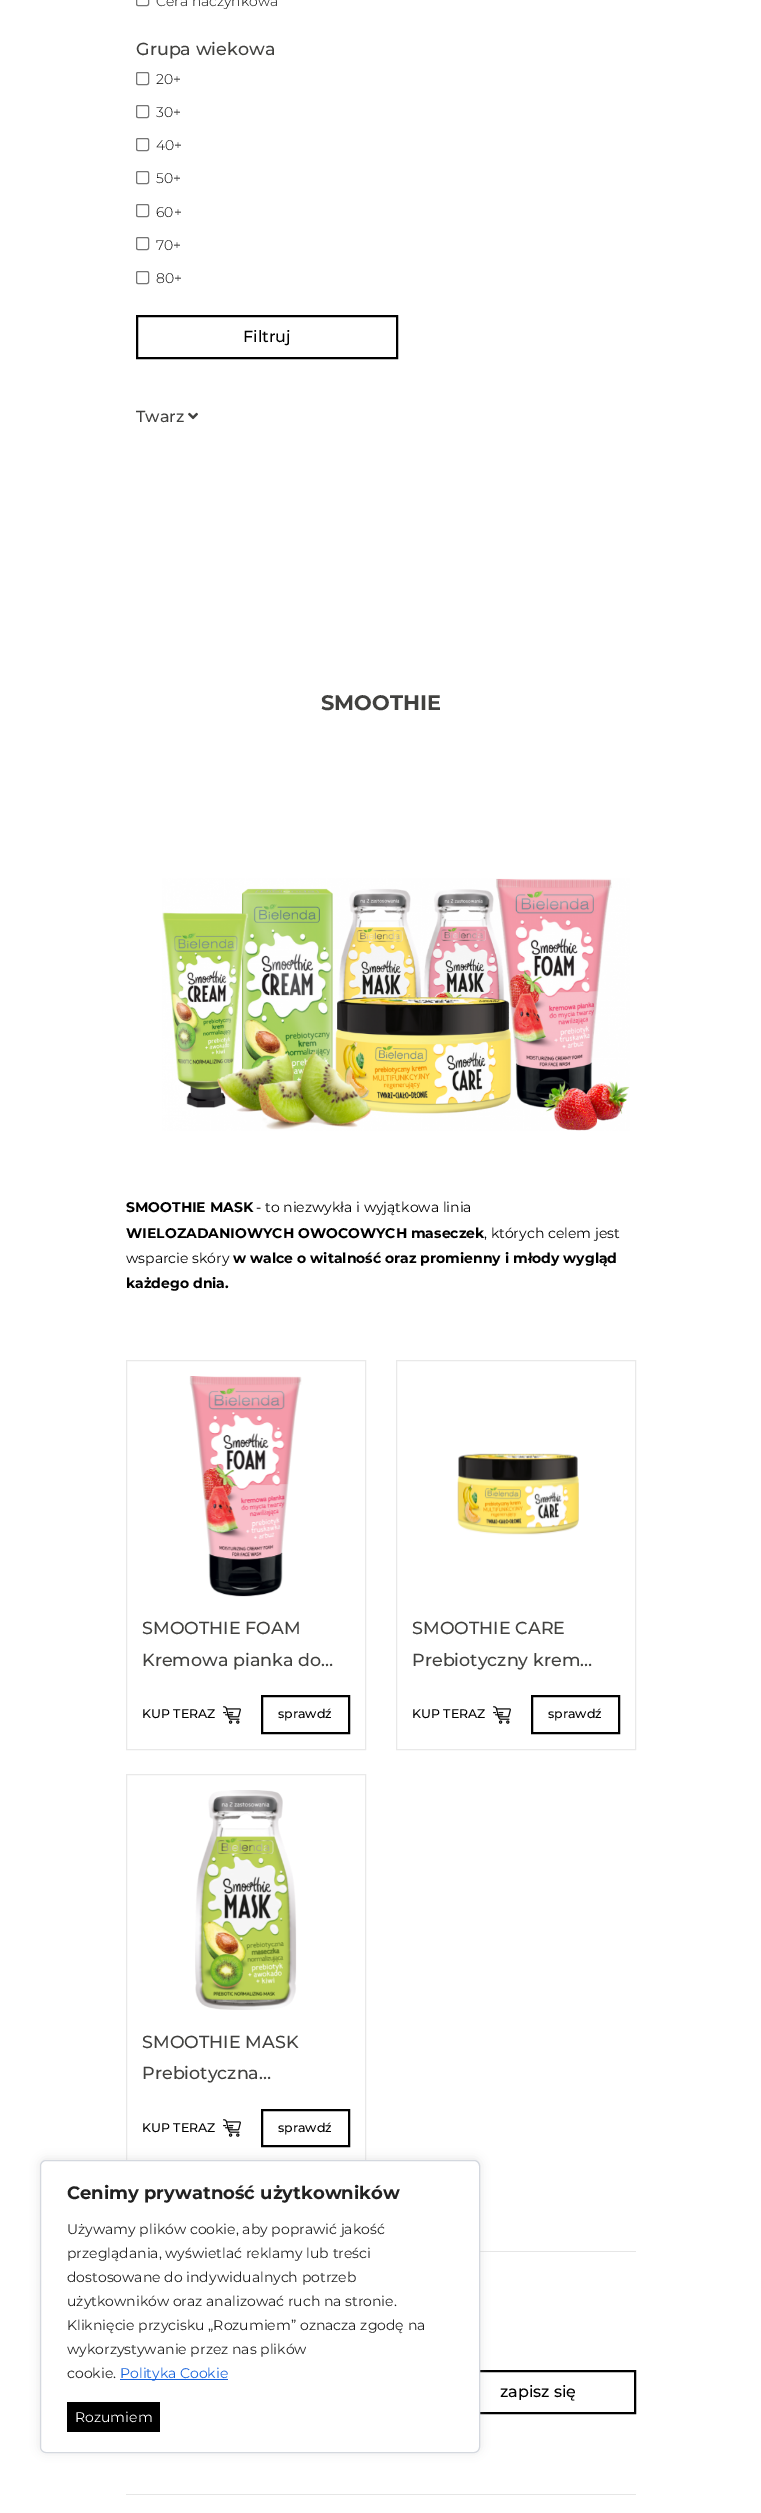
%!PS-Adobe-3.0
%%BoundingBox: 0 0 761 2513
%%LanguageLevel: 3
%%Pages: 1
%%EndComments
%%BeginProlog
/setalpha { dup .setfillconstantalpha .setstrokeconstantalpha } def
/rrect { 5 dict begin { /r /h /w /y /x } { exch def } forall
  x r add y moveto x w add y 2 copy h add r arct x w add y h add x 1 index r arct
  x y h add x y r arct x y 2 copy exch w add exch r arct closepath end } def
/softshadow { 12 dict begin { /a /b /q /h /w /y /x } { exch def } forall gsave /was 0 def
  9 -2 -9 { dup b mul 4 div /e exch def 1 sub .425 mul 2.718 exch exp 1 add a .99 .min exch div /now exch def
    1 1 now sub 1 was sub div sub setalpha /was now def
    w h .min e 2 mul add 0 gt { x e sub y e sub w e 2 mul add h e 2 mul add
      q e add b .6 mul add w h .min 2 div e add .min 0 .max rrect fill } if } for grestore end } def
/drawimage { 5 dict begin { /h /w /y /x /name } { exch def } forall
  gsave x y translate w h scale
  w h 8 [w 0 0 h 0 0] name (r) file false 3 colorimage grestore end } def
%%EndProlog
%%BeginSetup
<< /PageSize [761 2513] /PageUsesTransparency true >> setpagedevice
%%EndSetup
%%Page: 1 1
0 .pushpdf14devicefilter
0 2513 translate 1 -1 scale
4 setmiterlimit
1 setgray
0 0 761 2513 rectfill
0.463 setgray
136.5 -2.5 12 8 1.5 rrect stroke
136.5 72.5 12 12 1.5 rrect stroke
136.5 105.5 12 12 1.5 rrect stroke
136.5 138.5 12 12 1.5 rrect stroke
136.5 171.5 12 12 1.5 rrect stroke
136.5 204.5 12 12 1.5 rrect stroke
136.5 237.5 12 12 1.5 rrect stroke
136.5 271.5 12 12 1.5 rrect stroke
0 setgray
2 setlinewidth
137 316 260 42 rectstroke
(images/1.raw) 188 412 10 8 drawimage
(images/2.raw) 162 878 468 253 drawimage
0.914 setgray
1 setlinewidth
126.5 1360.5 239 389 rectstroke
(images/3.raw) 189 1376 113 221 drawimage
(images/4.raw) 223 1706 18 18 drawimage
0 setgray
2 setlinewidth
262 1696 87 37 rectstroke
0.914 setgray
1 setlinewidth
396.5 1360.5 239 389 rectstroke
(images/5.raw) 457 1453 122 82 drawimage
(images/4.raw) 493 1706 18 18 drawimage
0 setgray
2 setlinewidth
532 1696 87 37 rectstroke
0.914 setgray
1 setlinewidth
126.5 1774.5 239 388 rectstroke
(images/6.raw) 195 1790 102 220 drawimage
(images/4.raw) 223 2119 18 18 drawimage
0 setgray
2 setlinewidth
262 2110 87 36 rectstroke
0.902 setgray
480 2251 156 1 rectfill
0 setgray
442 2371 193 42 rectstroke
0.675 0.671 0.671 setrgbcolor
40 2159 440 293 6 5 0.3 softshadow
1 setgray
40.5 2160.5 439 292 5.5 rrect gsave fill grestore
0.831 0.847 0.875 setrgbcolor
1 setlinewidth
stroke
0.094 0.388 0.863 setrgbcolor
120 2379 108 1 rectfill
0 setgray
67 2402 93 30 rectfill
0.902 setgray
126 2494 510 1 rectfill
/Montserrat-Light [14 0 0 -14 0 0] selectfont
0 setgray
156 6 moveto (Cera naczynkowa) show
/Montserrat-Medium [17.5 0 0 -17.5 0 0] selectfont
0.255 0.255 0.247 setrgbcolor
136 55 moveto (Grupa wiekowa) show
/Montserrat-Light [14 0 0 -14 0 0] selectfont
0 setgray
156 84 moveto (20+) show
156 117 moveto (30+) show
156 150 moveto (40+) show
156 183 moveto (50+) show
156 217 moveto (60+) show
156 250 moveto (70+) show
156 283 moveto (80+) show
/Montserrat-Medium [16 0 0 -16 0 0] selectfont
243 342 moveto (Filtruj) show
0.255 0.255 0.247 setrgbcolor
136 422 moveto (Twarz) show
/Montserrat-Bold [21 0 0 -21 0 0] selectfont
321 710 moveto (SMOOTHIE) show
/Montserrat-Bold [14 0 0 -14 0 0] selectfont
0 setgray
126 1212 moveto (SMOOTHIE MASK) show
/Montserrat-Regular [14 0 0 -14 0 0] selectfont
256 1212 moveto (- to niezwykła i wyjątkowa linia) show
/Montserrat-Bold [14 0 0 -14 0 0] selectfont
126 1238 moveto (WIELOZADANIOWYCH OWOCOWYCH maseczek) show
/Montserrat-Regular [14 0 0 -14 0 0] selectfont
484 1238 moveto (, których celem jest) show
126 1263 moveto (wsparcie skóry) show
/Montserrat-Bold [14 0 0 -14 0 0] selectfont
233 1263 moveto (w walce o witalność oraz promienny i młody wygląd) show
126 1288 moveto (każdego dnia.) show
/Montserrat-Medium [17.5 0 0 -17.5 0 0] selectfont
0.255 0.255 0.247 setrgbcolor
142 1634 moveto (SMOOTHIE FOAM) show
142 1666 moveto (Kremowa pianka do…) show
/Montserrat-Medium [12.5 0 0 -12.5 0 0] selectfont
0 setgray
142 1718 moveto (KUP TERAZ) show
278 1718 moveto (sprawdź) show
/Montserrat-Medium [17.5 0 0 -17.5 0 0] selectfont
0.255 0.255 0.247 setrgbcolor
412 1634 moveto (SMOOTHIE CARE) show
412 1666 moveto (Prebiotyczny krem…) show
/Montserrat-Medium [12.5 0 0 -12.5 0 0] selectfont
0 setgray
412 1718 moveto (KUP TERAZ) show
548 1718 moveto (sprawdź) show
/Montserrat-Medium [17.5 0 0 -17.5 0 0] selectfont
0.255 0.255 0.247 setrgbcolor
142 2048 moveto (SMOOTHIE MASK) show
142 2079 moveto (Prebiotyczna…) show
/Montserrat-Medium [12.5 0 0 -12.5 0 0] selectfont
0 setgray
142 2132 moveto (KUP TERAZ) show
278 2132 moveto (sprawdź) show
/Montserrat-Bold [18 0 0 -18 0 0] selectfont
0.129 setgray
67 2199 moveto (Cenimy prywatność użytkowników) show
/Montserrat-Regular [14 0 0 -14 0 0] selectfont
67 2234 moveto (Używamy plików cookie, aby poprawić jakość) show
67 2258 moveto (przeglądania, wyświetlać reklamy lub treści) show
67 2282 moveto (dostosowane do indywidualnych potrzeb) show
67 2306 moveto (użytkowników oraz analizować ruch na stronie.) show
67 2330 moveto (Kliknięcie przycisku „Rozumiem” oznacza zgodę na) show
67 2354 moveto (wykorzystywanie przez nas plików) show
67 2378 moveto (cookie.) show
0.094 0.388 0.863 setrgbcolor
120 2378 moveto (Polityka Cookie) show
1 setgray
75 2422 moveto (Rozumiem) show
/Montserrat-Medium [16 0 0 -16 0 0] selectfont
0 setgray
500 2397 moveto (zapisz się) show
.poppdf14devicefilter showpage
%%EOF
